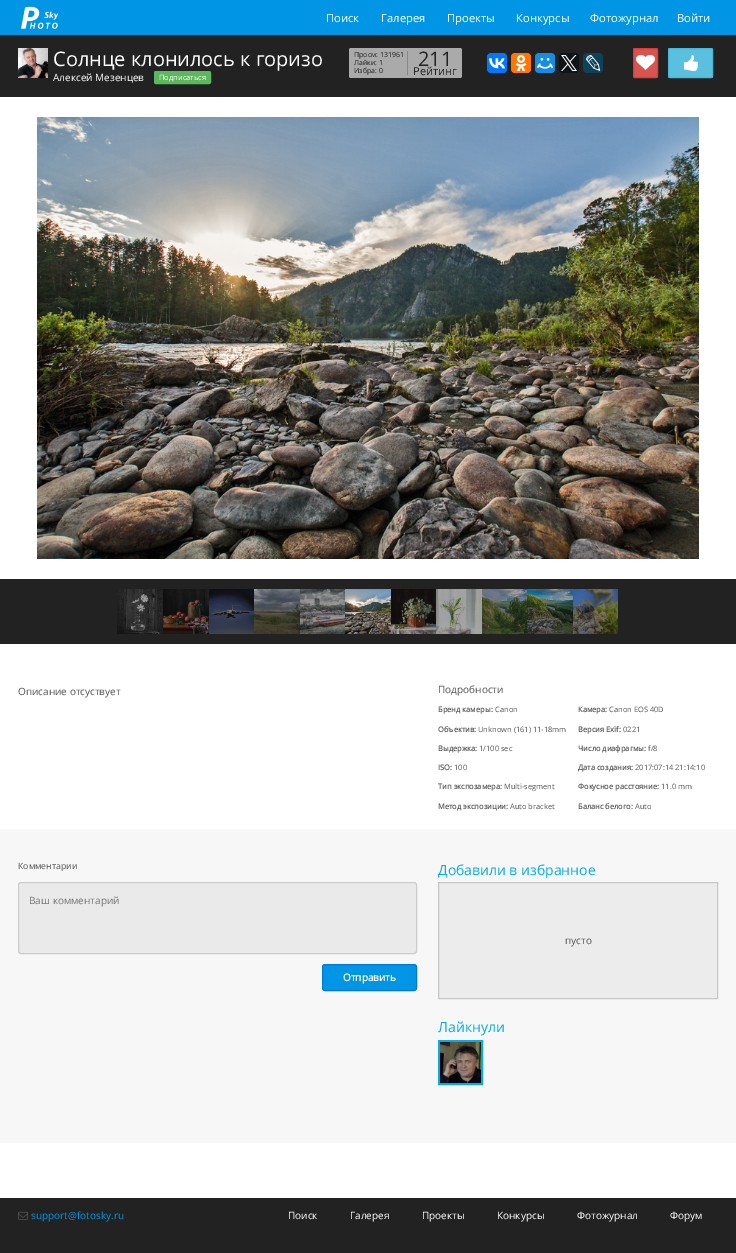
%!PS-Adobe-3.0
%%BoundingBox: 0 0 736 1253
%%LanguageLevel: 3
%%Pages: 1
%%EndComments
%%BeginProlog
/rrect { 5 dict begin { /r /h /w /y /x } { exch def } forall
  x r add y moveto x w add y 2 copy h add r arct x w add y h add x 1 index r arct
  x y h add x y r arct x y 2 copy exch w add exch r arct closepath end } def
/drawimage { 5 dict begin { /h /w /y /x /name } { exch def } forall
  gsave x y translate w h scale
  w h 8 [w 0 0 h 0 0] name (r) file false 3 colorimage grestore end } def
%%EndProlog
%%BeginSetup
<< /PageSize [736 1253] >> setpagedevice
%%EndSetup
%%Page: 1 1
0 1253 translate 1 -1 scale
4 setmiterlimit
1 setgray
0 0 736 1253 rectfill
0 0.588 0.898 setrgbcolor
0 0 736 35 rectfill
(images/1.raw) 21 6 38 23 drawimage
0.133 setgray
0 35 736 62 rectfill
(images/2.raw) 18 48 30 30 drawimage
0.361 0.722 0.361 setrgbcolor
154.5 71.5 56 12 1.5 rrect gsave fill grestore
stroke
0.667 setgray
349 48 113 30 2 rrect fill
0.533 setgray
407 51 1 24 rectfill
0 0.467 1 setrgbcolor
487 53 20 20 4 rrect fill
(images/3.raw) 489 58 16 11 drawimage
1 0.467 0 setrgbcolor
511 53 20 20 4 rrect fill
(images/4.raw) 515 55 12 16 drawimage
0.086 0.553 0.886 setrgbcolor
535 53 20 20 4 rrect fill
(images/5.raw) 537 58 16 11 drawimage
0.059 0.078 0.098 setrgbcolor
559 53 20 20 4 rrect fill
(images/6.raw) 561 55 16 16 drawimage
0.051 0.259 0.353 setrgbcolor
583 53 20 20 4 rrect fill
(images/7.raw) 586 55 15 16 drawimage
0.851 0.325 0.31 setrgbcolor
633 48 25 30 2 rrect fill
(images/8.raw) 636 55 19 15 drawimage
0.831 0.247 0.227 setrgbcolor
633.5 48.5 24 29 1.5 rrect stroke
0.357 0.753 0.871 setrgbcolor
668 48 45 30 2 rrect fill
(images/9.raw) 684 55 14 16 drawimage
0.275 0.722 0.855 setrgbcolor
668.5 48.5 44 29 1.5 rrect stroke
(images/10.raw) 37 117 662 442 drawimage
0.133 setgray
0 579 736 65 rectfill
(images/11.raw) 117 589 46 45 drawimage
(images/12.raw) 163 589 46 45 drawimage
(images/13.raw) 209 589 45 45 drawimage
(images/14.raw) 254 589 46 45 drawimage
(images/15.raw) 300 589 45 45 drawimage
(images/16.raw) 345 589 46 45 drawimage
(images/17.raw) 391 589 45 45 drawimage
(images/18.raw) 436 589 46 45 drawimage
(images/19.raw) 482 589 45 45 drawimage
(images/20.raw) 527 589 46 45 drawimage
(images/21.raw) 573 589 45 45 drawimage
0.969 setgray
0 829 736 314 rectfill
0.918 setgray
18.5 882.5 398 71 2.5 rrect gsave fill grestore
0.8 setgray
stroke
0 0.588 0.898 setrgbcolor
322.5 964.5 94 26 2.5 rrect gsave fill grestore
0 0.467 0.867 setrgbcolor
stroke
0.925 setgray
newpath 438.5 882.5 moveto 717.5 882.5 lineto 717.5 998.5 lineto 438.5 998.5 lineto closepath gsave fill grestore
0.78 setgray
stroke
0.008 0.678 0.918 setrgbcolor
2 setlinewidth
439 1041 43 43 rectstroke
(images/22.raw) 440 1042 41 41 drawimage
0.133 setgray
0 1198 736 55 rectfill
(images/23.raw) 18 1211 10 9 drawimage
/OpenSans-Regular [11.25 0 0 -11.25 0 0] selectfont
1 setgray
326 22 moveto (Поиск) show
381 22 moveto (Галерея) show
447 22 moveto (Проекты) show
516 22 moveto (Конкурсы) show
590 22 moveto (Фотожурнал) show
677 22 moveto (Войти) show
/OpenSans-Regular [20 0 0 -20 0 0] selectfont
53 66 moveto (Солнце клонилось к горизо) show
/OpenSans-Regular [10 0 0 -10 0 0] selectfont
53 81 moveto (Алексей Мезенцев) show
/OpenSans-Regular [7.5 0 0 -7.5 0 0] selectfont
159 80 moveto (Подписаться) show
/OpenSans-Regular [7 0 0 -7 0 0] selectfont
0.133 setgray
354 57 moveto (Просм: 131961) show
354 65 moveto (Лайки: 1) show
354 73 moveto (Избра: 0) show
/OpenSans-Regular [20 0 0 -20 0 0] selectfont
418 66 moveto (211) show
/OpenSans-Regular [11 0 0 -11 0 0] selectfont
413 75 moveto (Рейтинг) show
/OpenSans-Regular [10 0 0 -10 0 0] selectfont
0.333 setgray
18 695 moveto (Описание отсуствует) show
438 693 moveto (Подробности) show
/OpenSans-Bold [7.5 0 0 -7.5 0 0] selectfont
438 712 moveto (Бренд камеры:) show
/OpenSans-Regular [7.5 0 0 -7.5 0 0] selectfont
495 712 moveto (Canon) show
/OpenSans-Bold [7.5 0 0 -7.5 0 0] selectfont
578 712 moveto (Камера:) show
/OpenSans-Regular [7.5 0 0 -7.5 0 0] selectfont
609 712 moveto (Canon EOS 40D) show
/OpenSans-Bold [7.5 0 0 -7.5 0 0] selectfont
438 732 moveto (Объектив:) show
/OpenSans-Regular [7.5 0 0 -7.5 0 0] selectfont
478 732 moveto (Unknown \(161\) 11-18mm) show
/OpenSans-Bold [7.5 0 0 -7.5 0 0] selectfont
578 732 moveto (Версия Exif:) show
/OpenSans-Regular [7.5 0 0 -7.5 0 0] selectfont
623 732 moveto (0221) show
/OpenSans-Bold [7.5 0 0 -7.5 0 0] selectfont
438 751 moveto (Выдержка:) show
/OpenSans-Regular [7.5 0 0 -7.5 0 0] selectfont
479 751 moveto (1/100 sec) show
/OpenSans-Bold [7.5 0 0 -7.5 0 0] selectfont
578 751 moveto (Число диафрагмы:) show
/OpenSans-Regular [7.5 0 0 -7.5 0 0] selectfont
648 751 moveto (f/8) show
/OpenSans-Bold [7.5 0 0 -7.5 0 0] selectfont
438 770 moveto (ISO:) show
/OpenSans-Regular [7.5 0 0 -7.5 0 0] selectfont
454 770 moveto (100) show
/OpenSans-Bold [7.5 0 0 -7.5 0 0] selectfont
578 770 moveto (Дата создания:) show
/OpenSans-Regular [7.5 0 0 -7.5 0 0] selectfont
635 770 moveto (2017:07:14 21:14:10) show
/OpenSans-Bold [7.5 0 0 -7.5 0 0] selectfont
438 789 moveto (Тип экспозамера:) show
/OpenSans-Regular [7.5 0 0 -7.5 0 0] selectfont
504 789 moveto (Multi-segment) show
/OpenSans-Bold [7.5 0 0 -7.5 0 0] selectfont
578 789 moveto (Фокусное расстояние:) show
/OpenSans-Regular [7.5 0 0 -7.5 0 0] selectfont
661 789 moveto (11.0 mm) show
/OpenSans-Bold [7.5 0 0 -7.5 0 0] selectfont
438 809 moveto (Метод экспозиции:) show
/OpenSans-Regular [7.5 0 0 -7.5 0 0] selectfont
510 809 moveto (Auto bracket) show
/OpenSans-Bold [7.5 0 0 -7.5 0 0] selectfont
578 809 moveto (Баланс белого:) show
/OpenSans-Regular [7.5 0 0 -7.5 0 0] selectfont
635 809 moveto (Auto) show
/OpenSans-Regular [8.75 0 0 -8.75 0 0] selectfont
18 869 moveto (Комментарии) show
/OpenSans-Regular [10 0 0 -10 0 0] selectfont
0.459 setgray
29 904 moveto (Ваш комментарий) show
/OpenSans-Bold [10 0 0 -10 0 0] selectfont
1 setgray
343 981 moveto (Отправить) show
/OpenSans-Regular [14 0 0 -14 0 0] selectfont
0.008 0.678 0.918 setrgbcolor
438 875 moveto (Добавили в избранное) show
/OpenSans-Regular [10 0 0 -10 0 0] selectfont
0.333 setgray
565 944 moveto (пусто) show
/OpenSans-Regular [14 0 0 -14 0 0] selectfont
0.008 0.678 0.918 setrgbcolor
438 1032 moveto (Лайкнули) show
/OpenSans-Regular [10 0 0 -10 0 0] selectfont
0 0.588 0.898 setrgbcolor
31 1219 moveto (support@fotosky.ru) show
1 setgray
288 1219 moveto (Поиск) show
350 1219 moveto (Галерея) show
422 1219 moveto (Проекты) show
497 1219 moveto (Конкурсы) show
577 1219 moveto (Фотожурнал) show
670 1219 moveto (Форум) show
showpage
%%EOF
